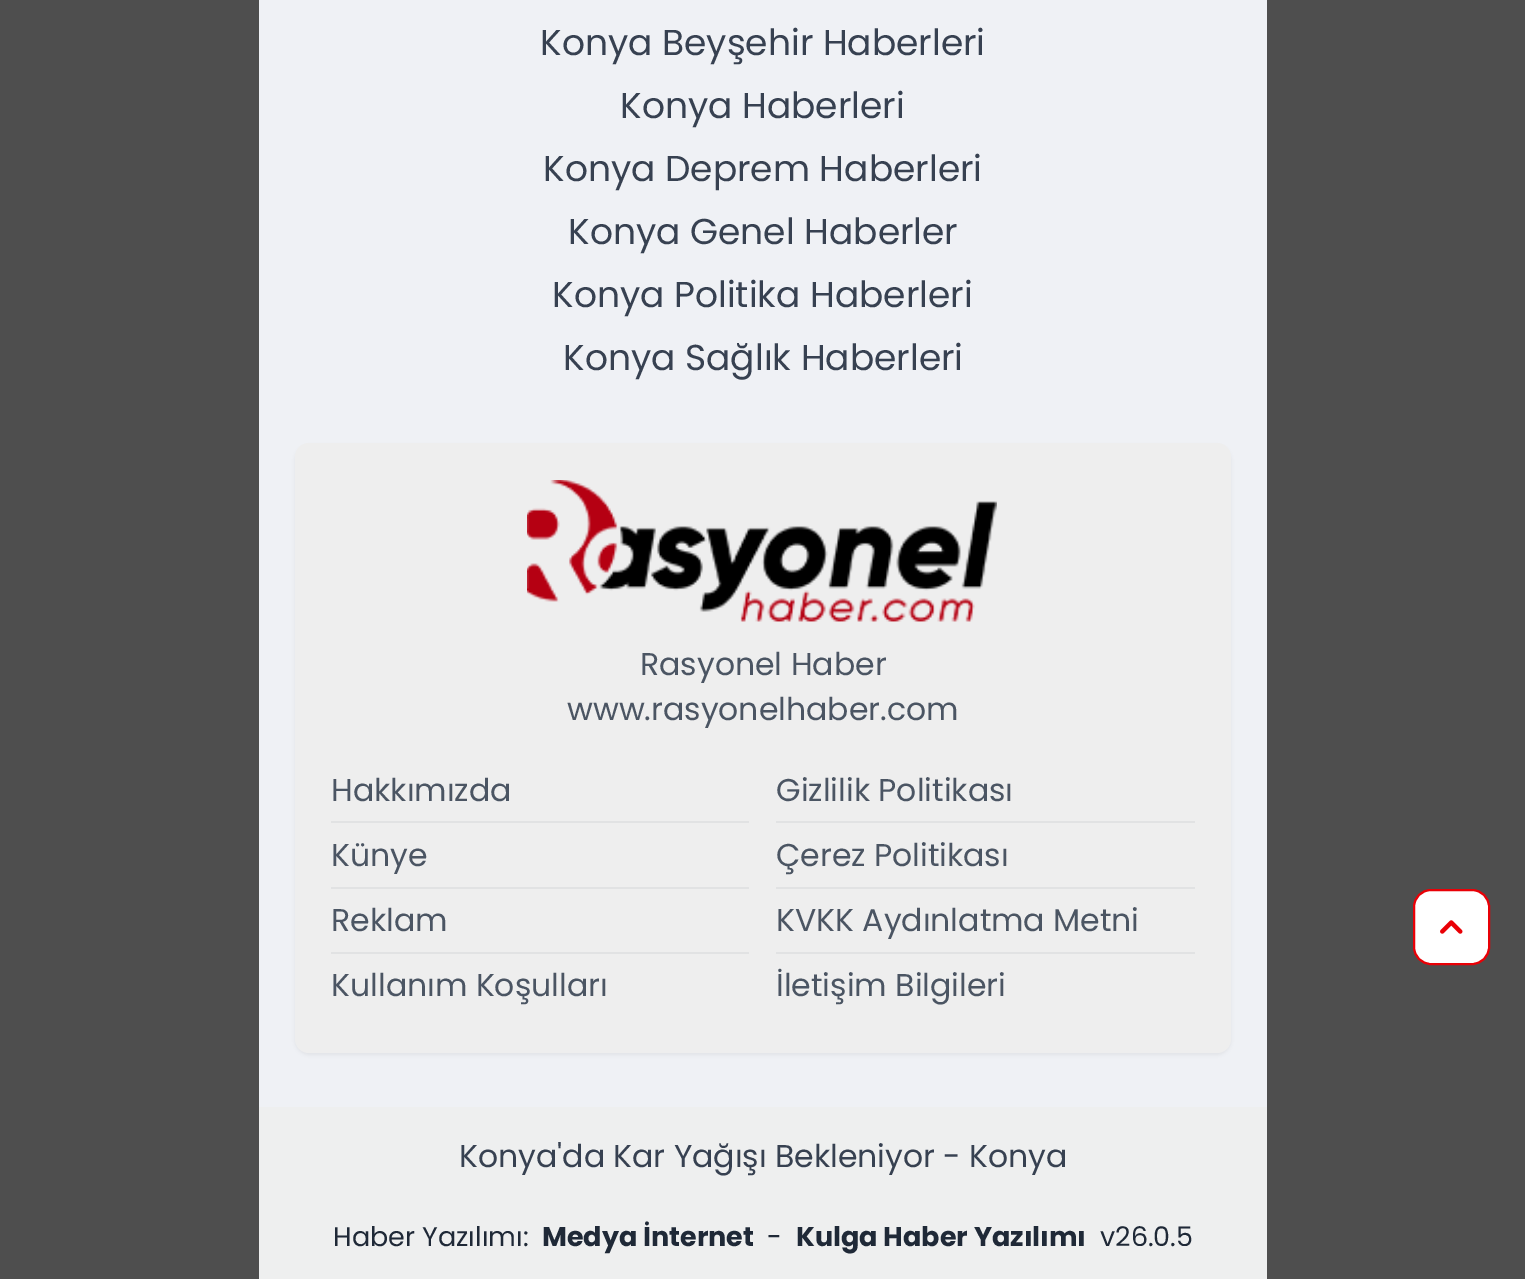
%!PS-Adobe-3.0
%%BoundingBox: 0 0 1525 1279
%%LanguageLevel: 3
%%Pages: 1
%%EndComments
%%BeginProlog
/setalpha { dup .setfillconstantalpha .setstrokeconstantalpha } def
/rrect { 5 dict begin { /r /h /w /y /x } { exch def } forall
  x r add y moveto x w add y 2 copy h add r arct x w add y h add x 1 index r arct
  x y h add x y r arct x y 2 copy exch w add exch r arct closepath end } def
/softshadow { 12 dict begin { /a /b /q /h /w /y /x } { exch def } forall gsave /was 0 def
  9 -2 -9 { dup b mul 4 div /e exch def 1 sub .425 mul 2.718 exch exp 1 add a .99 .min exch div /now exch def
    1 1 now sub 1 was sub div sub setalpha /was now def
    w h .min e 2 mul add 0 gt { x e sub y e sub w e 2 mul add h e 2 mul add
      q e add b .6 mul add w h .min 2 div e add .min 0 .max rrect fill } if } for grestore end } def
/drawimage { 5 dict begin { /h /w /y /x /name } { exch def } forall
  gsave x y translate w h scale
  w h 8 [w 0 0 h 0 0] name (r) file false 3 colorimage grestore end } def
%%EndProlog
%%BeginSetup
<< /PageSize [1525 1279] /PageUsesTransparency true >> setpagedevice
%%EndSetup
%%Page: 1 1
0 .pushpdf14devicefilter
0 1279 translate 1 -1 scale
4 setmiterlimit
0.306 setgray
0 0 1525 1279 rectfill
0.937 0.945 0.961 setrgbcolor
259 0 1008 1107 rectfill
0 setgray
295 446 936 609 14 2 0.05 softshadow
0.933 setgray
295 443 936 610 14 rrect fill
(images/1.raw) 527 480 470 142 drawimage
0.882 0.886 0.89 setrgbcolor
331 821 418 2 rectfill
331 887 418 2 rectfill
331 952 418 2 rectfill
776 821 419 2 rectfill
776 887 419 2 rectfill
776 952 419 2 rectfill
0.933 0.937 0.937 setrgbcolor
259 1107 1008 172 rectfill
1 setgray
1414 890 75 74 17 rrect gsave fill grestore
0.914 0 0.024 setrgbcolor
2 setlinewidth
stroke
(images/2.raw) 1440 920 23 14 drawimage
/Poppins-Regular [36 0 0 -36 0 0] selectfont
0.216 0.255 0.318 setrgbcolor
540 55 moveto (Konya Beyşehir Haberleri) show
620 118 moveto (Konya Haberleri) show
543 181 moveto (Konya Deprem Haberleri) show
568 244 moveto (Konya Genel Haberler) show
552 307 moveto (Konya Politika Haberleri) show
563 370 moveto (Konya Sağlık Haberleri) show
/Poppins-Regular [31.5 0 0 -31.5 0 0] selectfont
0.294 0.333 0.388 setrgbcolor
640 675 moveto (Rasyonel Haber) show
567 720 moveto (www.rasyonelhaber.com) show
331 801 moveto (Hakkımızda) show
331 866 moveto (Künye) show
331 931 moveto (Reklam) show
331 996 moveto (Kullanım Koşulları) show
776 801 moveto (Gizlilik Politikası) show
776 866 moveto (Çerez Politikası) show
776 931 moveto (KVKK Aydınlatma Metni) show
776 996 moveto (İletişim Bilgileri) show
0.216 0.255 0.318 setrgbcolor
459 1167 moveto (Konya'da Kar Yağışı Bekleniyor - Konya) show
/Poppins-Regular [27 0 0 -27 0 0] selectfont
0.122 0.161 0.216 setrgbcolor
333 1246 moveto (Haber Yazılımı:) show
/Poppins-Bold [27 0 0 -27 0 0] selectfont
542 1246 moveto (Medya İnternet) show
/Poppins-Regular [27 0 0 -27 0 0] selectfont
767 1246 moveto (-) show
/Poppins-Bold [27 0 0 -27 0 0] selectfont
796 1246 moveto (Kulga Haber Yazılımı) show
/Poppins-Regular [27 0 0 -27 0 0] selectfont
1100 1246 moveto (v26.0.5) show
.poppdf14devicefilter showpage
%%EOF
